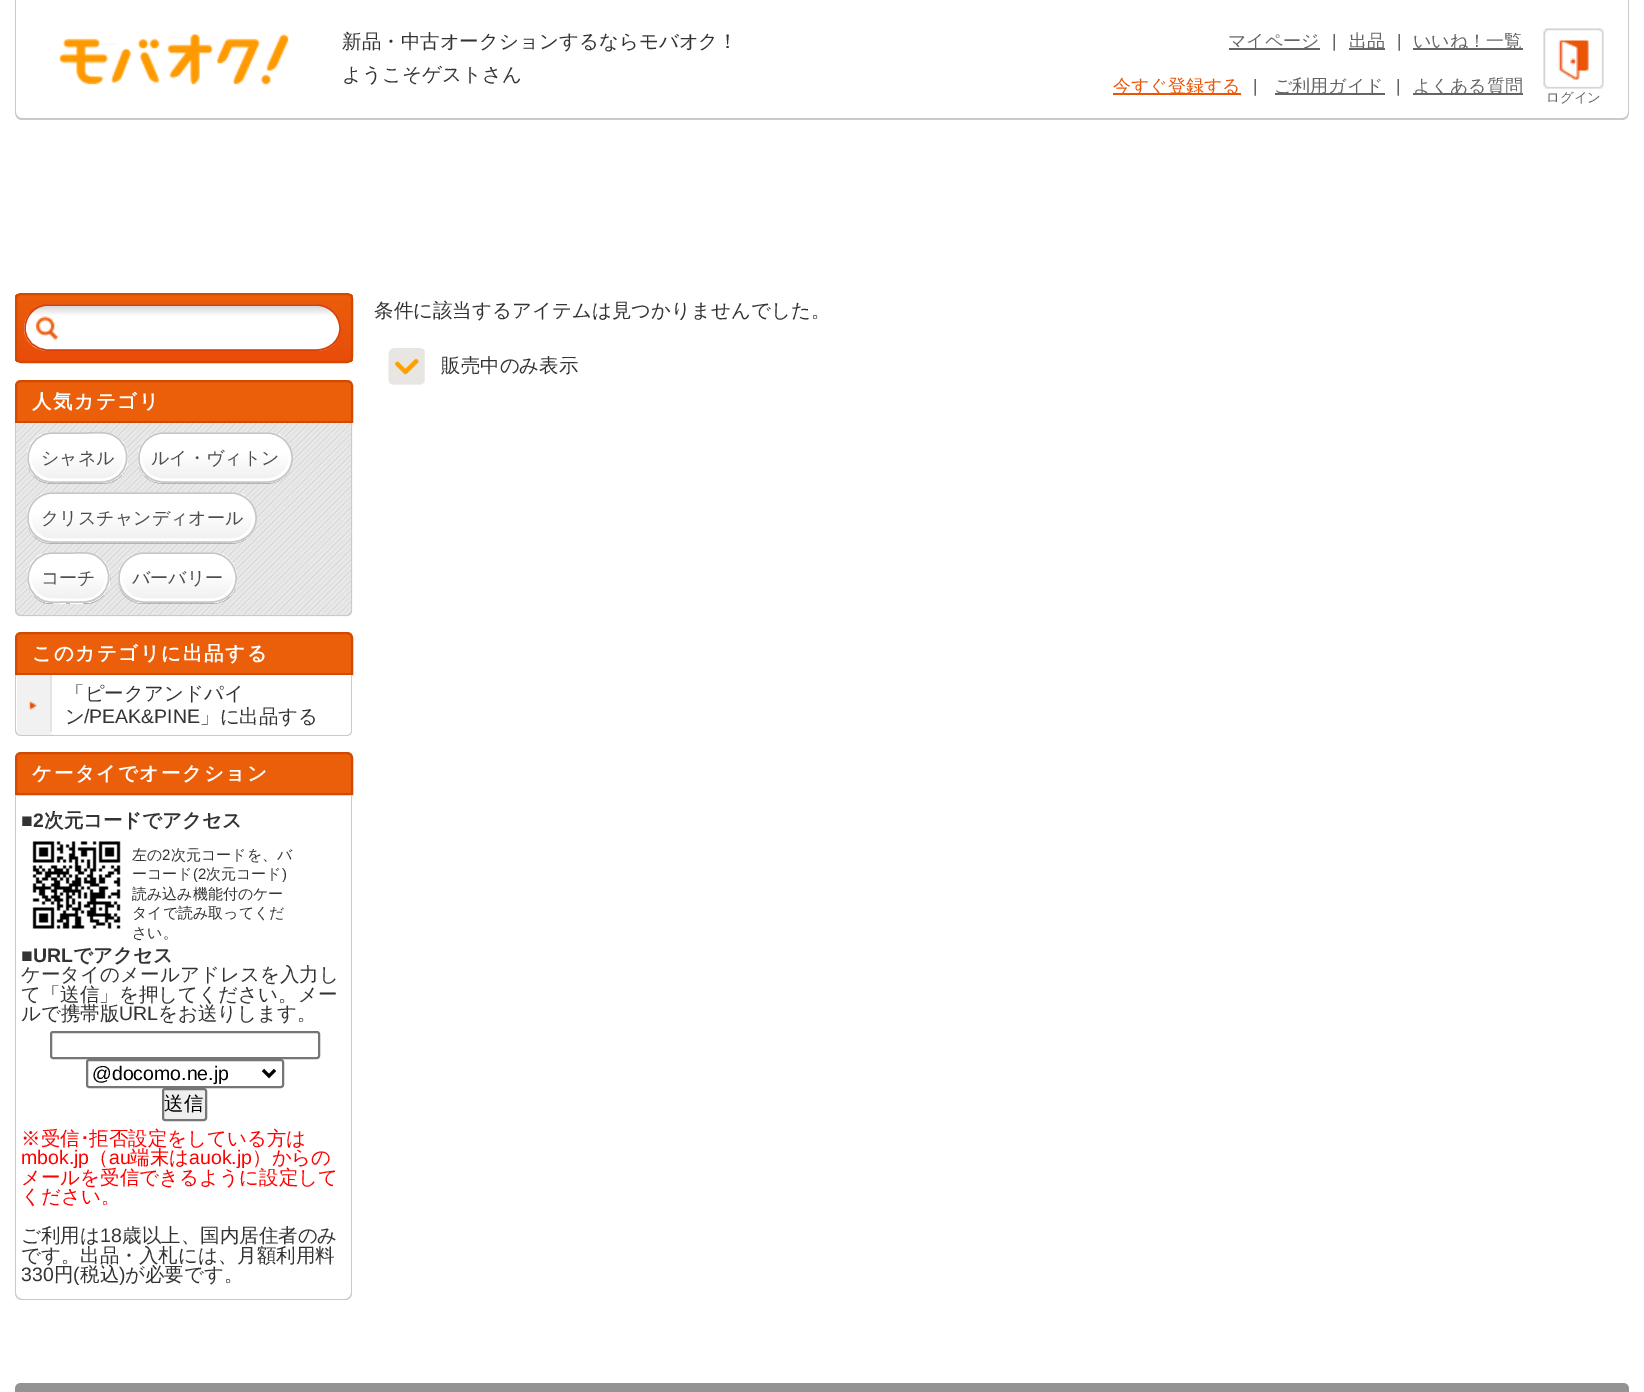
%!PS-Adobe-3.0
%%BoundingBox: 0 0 1644 1392
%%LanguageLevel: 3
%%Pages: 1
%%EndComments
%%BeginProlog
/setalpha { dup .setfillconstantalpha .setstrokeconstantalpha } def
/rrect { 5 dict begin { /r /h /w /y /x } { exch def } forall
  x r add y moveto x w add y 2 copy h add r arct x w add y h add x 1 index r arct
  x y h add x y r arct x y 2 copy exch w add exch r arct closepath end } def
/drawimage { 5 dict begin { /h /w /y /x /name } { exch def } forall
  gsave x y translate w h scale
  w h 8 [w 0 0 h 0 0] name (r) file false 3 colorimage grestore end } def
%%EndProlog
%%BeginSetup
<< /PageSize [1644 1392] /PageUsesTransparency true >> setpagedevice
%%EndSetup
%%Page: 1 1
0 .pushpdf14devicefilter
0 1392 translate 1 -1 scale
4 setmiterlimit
1 setgray
0 0 1644 1392 rectfill
0.792 setgray
newpath 15 0 moveto 1629 0 lineto 1629 112 lineto 1629 117 1626 120 1622 120 curveto 22 120 lineto 18 120 15 117 15 112 curveto closepath 16 0 moveto 1628 0 lineto 1628 112 lineto 1628 116 1625 118 1622 118 curveto 22 118 lineto 19 118 16 116 16 112 curveto closepath eofill
(images/1.raw) 59 34 230 51 drawimage
0.396 setgray
1229 48 91 2 rectfill
1349 48 36 2 rectfill
1413 48 110 2 rectfill
0.922 0.333 0.02 setrgbcolor
1113 93 128 2 rectfill
0.396 setgray
1275 93 110 2 rectfill
1413 93 110 2 rectfill
(images/2.raw) 1543 28 61 61 drawimage
(images/3.raw) 388 348 37 37 drawimage
gsave
15 293 338 70 6 rrect clip newpath
gsave newpath 15 294 moveto 353 294 lineto 353 362 lineto 15 362 lineto closepath clip newpath
<< /ShadingType 2 /ColorSpace /DeviceRGB /Coords [17 294 17 362] /Extend [true true] /Function << /FunctionType 2 /Domain [0 1] /C0 [0.922 0.369 0.039] /C1 [0.914 0.298 0.035] /N 1 >> >> shfill grestore
grestore
0.824 0.29 0 setrgbcolor
2 setlinewidth
16 294 336 68 5 rrect stroke
(images/4.raw) 24 304 317 47 drawimage
0.835 0.247 0.031 setrgbcolor
1.5 setlinewidth
newpath 48 305 moveto 316.5 305 lineto 329.5 305 340 315.5 340 328.5 curveto 340 340.5 329.5 350 316.5 350 curveto 48 350 lineto 35 350 25 340.5 25 328.5 curveto 25 315.5 35 305 48 305 curveto closepath stroke
0.922 0.369 0.039 setrgbcolor
newpath 21 381 moveto 347 381 lineto 350 381 352 383 352 386 curveto 352 422 lineto 16 422 lineto 16 386 lineto 16 383 18 381 21 381 curveto closepath gsave fill grestore
0.824 0.29 0 setrgbcolor
2 setlinewidth
stroke
(images/5.raw) 15 423 338 194 drawimage
0.792 setgray
newpath 15 423 moveto 352 423 lineto 352 610 lineto 352 614 350 616 346 616 curveto 21 616 lineto 18 616 15 614 15 610 curveto closepath 16 423 moveto 351 423 lineto 351 610 lineto 351 613 349 615 346 615 curveto 21 615 lineto 19 615 16 613 16 610 curveto closepath eofill
0.21 setalpha
0 setgray
newpath 27 459 moveto 27 460 lineto 27 474 38 484 52 484 curveto 102 484 lineto 116 484 128 474 128 460 curveto 128 459 lineto 128 456 128 454 127 451 curveto 128 459 lineto 128 472 116 483 102 483 curveto 52 483 lineto 38 483 27 472 27 459 curveto closepath fill
1 setalpha
1 setgray
newpath 52 432 moveto 102 432 lineto 116 432 128 443 128 458 curveto 128 459 lineto 128 472 116 483 102 483 curveto 52 483 lineto 38 483 27 472 27 459 curveto 27 458 lineto 27 443 38 432 52 432 curveto closepath fill
gsave newpath 52 432 moveto 102 432 lineto 106 432 109 433 112 434 curveto 43 434 lineto 46 433 49 432 52 432 curveto closepath clip newpath
<< /ShadingType 2 /ColorSpace /DeviceRGB /Coords [77 434 77 386] /Extend [true true] /Function << /FunctionType 3 /Domain [0 1] /Functions [<< /FunctionType 2 /Domain [0 1] /C0 [0.937 0.937 0.937] /C1 [1 1 1] /N 1 >> << /FunctionType 2 /Domain [0 1] /C0 [1 1 1] /C1 [1 1 1] /N 1 >>] /Bounds [0.6] /Encode [0 1 0 1] >> >> shfill grestore
gsave newpath 27 458 moveto 27 459 lineto 27 470 35 479 45 482 curveto 109 482 lineto 120 479 128 470 128 459 curveto 128 458 lineto 128 447 121 438 112 434 curveto 43 434 lineto 33 438 27 447 27 458 curveto closepath clip newpath
<< /ShadingType 2 /ColorSpace /DeviceRGB /Coords [77 482 77 434] /Extend [true true] /Function << /FunctionType 3 /Domain [0 1] /Functions [<< /FunctionType 2 /Domain [0 1] /C0 [0.937 0.937 0.937] /C1 [1 1 1] /N 1 >> << /FunctionType 2 /Domain [0 1] /C0 [1 1 1] /C1 [1 1 1] /N 1 >>] /Bounds [0.6] /Encode [0 1 0 1] >> >> shfill grestore
3 setlinewidth
newpath 52.5 435 moveto 102 435 lineto 114.5 435 124.5 445 124.5 457.5 curveto 124.5 459 lineto 124.5 470.5 114.5 480 102 480 curveto 52.5 480 lineto 40 480 30 470.5 30 459 curveto 30 457.5 lineto 30 445 40 435 52.5 435 curveto closepath stroke
0.78 setgray
1.5 setlinewidth
newpath 52.5 433 moveto 85.5 433 lineto 94 433 103.5 431.5 111.5 434.5 curveto 136.5 445 129.5 481.5 102 482 curveto 69 482 lineto 60.5 482 51 483.5 43 480.5 curveto 18 470.5 26 433 52.5 433 curveto closepath stroke
0.21 setalpha
0 setgray
newpath 138 459 moveto 138 460 lineto 138 474 149 484 164 484 curveto 267 484 lineto 278 484 288 477 291 467 curveto 287 476 278 483 267 483 curveto 164 483 lineto 149 483 138 472 138 459 curveto closepath fill
1 setalpha
1 setgray
newpath 164 432 moveto 267 432 lineto 281 432 292 443 292 458 curveto 292 459 lineto 292 472 281 483 267 483 curveto 164 483 lineto 149 483 138 472 138 459 curveto 138 458 lineto 138 443 149 432 164 432 curveto closepath fill
gsave newpath 164 432 moveto 267 432 lineto 271 432 274 433 277 434 curveto 154 434 lineto 157 433 160 432 164 432 curveto closepath clip newpath
<< /ShadingType 2 /ColorSpace /DeviceRGB /Coords [215 434 215 386] /Extend [true true] /Function << /FunctionType 3 /Domain [0 1] /Functions [<< /FunctionType 2 /Domain [0 1] /C0 [0.937 0.937 0.937] /C1 [1 1 1] /N 1 >> << /FunctionType 2 /Domain [0 1] /C0 [1 1 1] /C1 [1 1 1] /N 1 >>] /Bounds [0.6] /Encode [0 1 0 1] >> >> shfill grestore
gsave newpath 138 458 moveto 138 459 lineto 138 470 146 479 156 482 curveto 274 482 lineto 285 479 292 470 292 459 curveto 292 458 lineto 292 447 286 438 277 434 curveto 154 434 lineto 144 438 138 447 138 458 curveto closepath clip newpath
<< /ShadingType 2 /ColorSpace /DeviceRGB /Coords [215 482 215 434] /Extend [true true] /Function << /FunctionType 3 /Domain [0 1] /Functions [<< /FunctionType 2 /Domain [0 1] /C0 [0.937 0.937 0.937] /C1 [1 1 1] /N 1 >> << /FunctionType 2 /Domain [0 1] /C0 [1 1 1] /C1 [1 1 1] /N 1 >>] /Bounds [0.6] /Encode [0 1 0 1] >> >> shfill grestore
3 setlinewidth
newpath 163.5 435 moveto 267 435 lineto 279.5 435 289.5 445 289.5 457.5 curveto 289.5 459 lineto 289.5 470.5 279.5 480 267 480 curveto 163.5 480 lineto 151 480 141 470.5 141 459 curveto 141 457.5 lineto 141 445 151 435 163.5 435 curveto closepath stroke
0.78 setgray
1.5 setlinewidth
newpath 163.5 433 moveto 267 433 lineto 280.5 433 292 444 292 457.5 curveto 292 459 lineto 292 472 280.5 482 267 482 curveto 163.5 482 lineto 150 482 139 472 139 459 curveto 139 457.5 lineto 139 444 150 433 163.5 433 curveto closepath stroke
0.21 setalpha
0 setgray
newpath 27 519 moveto 27 520 lineto 27 534 38 544 52 544 curveto 231 544 lineto 242 544 252 537 255 527 curveto 251 536 242 543 231 543 curveto 52 543 lineto 38 543 27 532 27 519 curveto closepath fill
1 setalpha
1 setgray
newpath 52 492 moveto 231 492 lineto 245 492 256 503 256 518 curveto 256 519 lineto 256 532 245 543 231 543 curveto 52 543 lineto 38 543 27 532 27 519 curveto 27 518 lineto 27 503 38 492 52 492 curveto closepath fill
gsave newpath 52 492 moveto 231 492 lineto 235 492 238 493 241 494 curveto 43 494 lineto 46 493 49 492 52 492 curveto closepath clip newpath
<< /ShadingType 2 /ColorSpace /DeviceRGB /Coords [142 494 142 446] /Extend [true true] /Function << /FunctionType 3 /Domain [0 1] /Functions [<< /FunctionType 2 /Domain [0 1] /C0 [0.937 0.937 0.937] /C1 [1 1 1] /N 1 >> << /FunctionType 2 /Domain [0 1] /C0 [1 1 1] /C1 [1 1 1] /N 1 >>] /Bounds [0.6] /Encode [0 1 0 1] >> >> shfill grestore
gsave newpath 27 518 moveto 27 519 lineto 27 530 35 539 45 542 curveto 238 542 lineto 249 539 256 530 256 519 curveto 256 518 lineto 256 507 250 498 241 494 curveto 43 494 lineto 33 498 27 507 27 518 curveto closepath clip newpath
<< /ShadingType 2 /ColorSpace /DeviceRGB /Coords [142 542 142 494] /Extend [true true] /Function << /FunctionType 3 /Domain [0 1] /Functions [<< /FunctionType 2 /Domain [0 1] /C0 [0.937 0.937 0.937] /C1 [1 1 1] /N 1 >> << /FunctionType 2 /Domain [0 1] /C0 [1 1 1] /C1 [1 1 1] /N 1 >>] /Bounds [0.6] /Encode [0 1 0 1] >> >> shfill grestore
3 setlinewidth
newpath 52.5 495 moveto 231 495 lineto 243.5 495 253.5 505 253.5 517.5 curveto 253.5 519 lineto 253.5 530.5 243.5 540 231 540 curveto 52.5 540 lineto 40 540 30 530.5 30 519 curveto 30 517.5 lineto 30 505 40 495 52.5 495 curveto closepath stroke
0.78 setgray
1.5 setlinewidth
newpath 52.5 493 moveto 231 493 lineto 244.5 493 256 504 256 517.5 curveto 256 519 lineto 256 532 244.5 542 231 542 curveto 52.5 542 lineto 39 542 28 532 28 519 curveto 28 517.5 lineto 28 504 39 493 52.5 493 curveto closepath stroke
0.21 setalpha
0 setgray
newpath 27 579 moveto 27 591 35 601 47 604 curveto 68 604 lineto 89 604 lineto 104 601 114 586 109 571 curveto 110 579 lineto 110 592 98 603 84 603 curveto 52 603 lineto 38 603 27 592 27 579 curveto closepath fill
1 setalpha
1 setgray
newpath 52 552 moveto 84 552 lineto 98 552 110 563 110 578 curveto 110 579 lineto 110 592 98 603 84 603 curveto 52 603 lineto 38 603 27 592 27 579 curveto 27 578 lineto 27 563 38 552 52 552 curveto closepath fill
gsave newpath 52 552 moveto 84 552 lineto 88 552 91 553 94 554 curveto 43 554 lineto 46 553 49 552 52 552 curveto closepath clip newpath
<< /ShadingType 2 /ColorSpace /DeviceRGB /Coords [68 554 68 506] /Extend [true true] /Function << /FunctionType 3 /Domain [0 1] /Functions [<< /FunctionType 2 /Domain [0 1] /C0 [0.937 0.937 0.937] /C1 [1 1 1] /N 1 >> << /FunctionType 2 /Domain [0 1] /C0 [1 1 1] /C1 [1 1 1] /N 1 >>] /Bounds [0.6] /Encode [0 1 0 1] >> >> shfill grestore
gsave newpath 27 578 moveto 27 579 lineto 27 590 35 599 45 602 curveto 91 602 lineto 102 599 110 590 110 579 curveto 110 578 lineto 110 567 103 558 94 554 curveto 43 554 lineto 33 558 27 567 27 578 curveto closepath clip newpath
<< /ShadingType 2 /ColorSpace /DeviceRGB /Coords [68 602 68 554] /Extend [true true] /Function << /FunctionType 3 /Domain [0 1] /Functions [<< /FunctionType 2 /Domain [0 1] /C0 [0.937 0.937 0.937] /C1 [1 1 1] /N 1 >> << /FunctionType 2 /Domain [0 1] /C0 [1 1 1] /C1 [1 1 1] /N 1 >>] /Bounds [0.6] /Encode [0 1 0 1] >> >> shfill grestore
gsave newpath 91 602 moveto 84 604 76 603 68 603 curveto 61 603 53 604 45 602 curveto closepath clip newpath
<< /ShadingType 2 /ColorSpace /DeviceRGB /Coords [68 650 68 602] /Extend [true true] /Function << /FunctionType 3 /Domain [0 1] /Functions [<< /FunctionType 2 /Domain [0 1] /C0 [0.937 0.937 0.937] /C1 [1 1 1] /N 1 >> << /FunctionType 2 /Domain [0 1] /C0 [1 1 1] /C1 [1 1 1] /N 1 >>] /Bounds [0.6] /Encode [0 1 0 1] >> >> shfill grestore
3 setlinewidth
newpath 52.5 555 moveto 73.5 555 lineto 80 555 86.5 554 93 557 curveto 111 564.5 111.5 591 93 598.5 curveto 85 601.5 67 600 58 600 curveto 53 600 48.5 600 43.5 598.5 curveto 21 589.5 28.5 555 52.5 555 curveto closepath stroke
0.78 setgray
1.5 setlinewidth
newpath 52.5 553 moveto 73.5 553 lineto 80 553 87.5 552 93.5 554.5 curveto 118 565 112 601 84 602 curveto 68 602 lineto 60 602 50.5 603.5 43 600.5 curveto 18 590.5 26 553 52.5 553 curveto closepath stroke
0.21 setalpha
0 setgray
newpath 119 571 moveto 118 574 118 576 118 579 curveto 118 580 lineto 118 594 130 604 144 604 curveto 212 604 lineto 226 604 237 594 237 580 curveto 237 579 lineto 237 592 226 603 212 603 curveto 144 603 lineto 130 603 118 592 118 579 curveto closepath fill
1 setalpha
1 setgray
newpath 144 552 moveto 212 552 lineto 226 552 237 563 237 578 curveto 237 579 lineto 237 592 226 603 212 603 curveto 144 603 lineto 130 603 118 592 118 579 curveto 118 578 lineto 118 563 130 552 144 552 curveto closepath fill
gsave newpath 144 552 moveto 212 552 lineto 215 552 218 553 221 554 curveto 134 554 lineto 137 553 140 552 144 552 curveto closepath clip newpath
<< /ShadingType 2 /ColorSpace /DeviceRGB /Coords [178 554 178 506] /Extend [true true] /Function << /FunctionType 3 /Domain [0 1] /Functions [<< /FunctionType 2 /Domain [0 1] /C0 [0.937 0.937 0.937] /C1 [1 1 1] /N 1 >> << /FunctionType 2 /Domain [0 1] /C0 [1 1 1] /C1 [1 1 1] /N 1 >>] /Bounds [0.6] /Encode [0 1 0 1] >> >> shfill grestore
gsave newpath 119 572 moveto 121 564 126 557 134 554 curveto 221 554 lineto 231 558 237 567 237 578 curveto 237 579 lineto 237 590 229 599 219 602 curveto 137 602 lineto 128 599 121 592 119 584 curveto closepath clip newpath
<< /ShadingType 2 /ColorSpace /DeviceRGB /Coords [178 602 178 554] /Extend [true true] /Function << /FunctionType 3 /Domain [0 1] /Functions [<< /FunctionType 2 /Domain [0 1] /C0 [0.937 0.937 0.937] /C1 [1 1 1] /N 1 >> << /FunctionType 2 /Domain [0 1] /C0 [1 1 1] /C1 [1 1 1] /N 1 >>] /Bounds [0.6] /Encode [0 1 0 1] >> >> shfill grestore
gsave newpath 219 602 moveto 212 603 lineto 144 603 lineto 137 602 lineto closepath clip newpath
<< /ShadingType 2 /ColorSpace /DeviceRGB /Coords [178 650 178 602] /Extend [true true] /Function << /FunctionType 3 /Domain [0 1] /Functions [<< /FunctionType 2 /Domain [0 1] /C0 [0.937 0.937 0.937] /C1 [1 1 1] /N 1 >> << /FunctionType 2 /Domain [0 1] /C0 [1 1 1] /C1 [1 1 1] /N 1 >>] /Bounds [0.6] /Encode [0 1 0 1] >> >> shfill grestore
3 setlinewidth
newpath 144 555 moveto 211.5 555 lineto 224 555 234 565 234 577.5 curveto 234 579 lineto 234 590.5 224 600 211.5 600 curveto 144 600 lineto 131.5 600 121.5 590.5 121.5 579 curveto 121.5 577.5 lineto 121.5 565 131.5 555 144 555 curveto closepath stroke
0.78 setgray
1.5 setlinewidth
newpath 144 553 moveto 211.5 553 lineto 225 553 236 564 236 577.5 curveto 236 579 lineto 236 592 225 602 211.5 602 curveto 144 602 lineto 130.5 602 119 592 119 579 curveto 119 577.5 lineto 119 564 130.5 553 144 553 curveto closepath stroke
0.922 0.369 0.039 setrgbcolor
newpath 21 633 moveto 347 633 lineto 350 633 352 635 352 638 curveto 352 674 lineto 16 674 lineto 16 638 lineto 16 635 18 633 21 633 curveto closepath gsave fill grestore
0.824 0.29 0 setrgbcolor
2 setlinewidth
stroke
0.792 setgray
newpath 15 675 moveto 352 675 lineto 352 730 lineto 352 734 350 736 346 736 curveto 21 736 lineto 18 736 15 734 15 730 curveto closepath 16 675 moveto 351 675 lineto 351 730 lineto 351 733 349 735 346 735 curveto 21 735 lineto 19 735 16 733 16 730 curveto closepath eofill
gsave
newpath 17 675 moveto 351 675 lineto 351 730 lineto 351 733 349 735 346 735 curveto 22 735 lineto 19 735 17 733 17 730 curveto closepath clip newpath
0.945 setgray
newpath 17 675 moveto 351 675 lineto 351 729 lineto 351 732.5 348.5 735 345 735 curveto 23 735 lineto 19.5 735 17 732.5 17 729 curveto closepath fill
grestore
(images/6.raw) 28 701 10 9 drawimage
1 setgray
newpath 50 675 moveto 351 675 lineto 351 729 lineto 351 732.5 348.5 735 345 735 curveto 56 735 lineto 52.5 735 50 732.5 50 729 curveto closepath fill
0.89 setgray
50 675 2 57 rectfill
0.922 0.369 0.039 setrgbcolor
newpath 21 753 moveto 347 753 lineto 350 753 352 755 352 758 curveto 352 794 lineto 16 794 lineto 16 758 lineto 16 755 18 753 21 753 curveto closepath gsave fill grestore
0.824 0.29 0 setrgbcolor
stroke
0.792 setgray
newpath 15 795 moveto 352 795 lineto 352 1293 lineto 352 1297 349 1300 345 1300 curveto 22 1300 lineto 18 1300 15 1297 15 1293 curveto closepath 16 795 moveto 351 795 lineto 351 1293 lineto 351 1296 348 1299 345 1299 curveto 22 1299 lineto 19 1299 16 1296 16 1293 curveto closepath eofill
(images/7.raw) 32 841 89 88 drawimage
0.463 setgray
51 1032 268 26 2 rrect stroke
87 1060 196 27 2 rrect stroke
0 setgray
3 setlinewidth
newpath 263 1070 moveto 269 1076 lineto 275 1070 lineto stroke
0.937 setgray
163 1089 43 31 2 rrect gsave fill grestore
0.463 setgray
2 setlinewidth
stroke
0.576 setgray
newpath 21 1383 moveto 1623 1383 lineto 1626.5 1383 1629 1385.5 1629 1389 curveto 1629 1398 lineto 15 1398 lineto 15 1389 lineto 15 1385.5 17.5 1383 21 1383 curveto closepath fill
/WenQuanYiZenHei-Medium [19.5 0 0 -19.5 0 0] selectfont
0.2 setgray
342 48 moveto (新品・中古オークションするならモバオク！) show
342 81 moveto (ようこそゲストさん) show
/WenQuanYiZenHei-Medium [18 0 0 -18 0 0] selectfont
0.396 setgray
1228 47 moveto (マイページ) show
/LiberationSans-Regular [18 0 0 -18 0 0] selectfont
1332 47 moveto (|) show
/WenQuanYiZenHei-Medium [18 0 0 -18 0 0] selectfont
1349 47 moveto (出品) show
/LiberationSans-Regular [18 0 0 -18 0 0] selectfont
1397 47 moveto (|) show
/WenQuanYiZenHei-Medium [18 0 0 -18 0 0] selectfont
1413 47 moveto (いいね！一覧) show
0.922 0.333 0.02 setrgbcolor
1113 92 moveto (今すぐ登録する) show
/LiberationSans-Regular [18 0 0 -18 0 0] selectfont
0.396 setgray
1253 92 moveto (|) show
/WenQuanYiZenHei-Medium [18 0 0 -18 0 0] selectfont
1274 92 moveto (ご利用ガイド) show
/LiberationSans-Regular [18 0 0 -18 0 0] selectfont
1396 92 moveto (|) show
/WenQuanYiZenHei-Medium [18 0 0 -18 0 0] selectfont
1413 92 moveto (よくある質問) show
/WenQuanYiZenHei-Medium [13.5 0 0 -13.5 0 0] selectfont
1546 102 moveto (ログイン) show
/WenQuanYiZenHei-Medium [19.5 0 0 -19.5 0 0] selectfont
0.2 setgray
374 317 moveto (条件に該当するアイテムは見つかりませんでした。) show
441 372 moveto (販売中のみ表示) show
/WenQuanYiZenHei-Bold [19.5 0 0 -19.5 0 0] selectfont
1 setgray
32 408 moveto 1.6 0 (人気カテゴリ) ashow
/WenQuanYiZenHei-Medium [18 0 0 -18 0 0] selectfont
0.302 setgray
41 464 moveto (シャネル) show
151 464 moveto (ルイ・ヴィトン) show
41 524 moveto (クリスチャンディオール) show
41 584 moveto (コーチ) show
132 584 moveto (バーバリー) show
/WenQuanYiZenHei-Bold [19.5 0 0 -19.5 0 0] selectfont
1 setgray
32 660 moveto 1.6 0 (このカテゴリに出品する) ashow
/WenQuanYiZenHei-Medium [19.5 0 0 -19.5 0 0] selectfont
0.2 setgray
65 700 moveto (「ピークアンドパイ) show
65 723 moveto (ン) show
/LiberationSans-Regular [19.5 0 0 -19.5 0 0] selectfont
84 723 moveto (/PEAK&PINE) show
/WenQuanYiZenHei-Medium [19.5 0 0 -19.5 0 0] selectfont
200 723 moveto (」に出品する) show
/WenQuanYiZenHei-Bold [19.5 0 0 -19.5 0 0] selectfont
1 setgray
32 780 moveto 1.6 0 (ケータイでオークション) ashow
/LiberationSans-Bold [19.5 0 0 -19.5 0 0] selectfont
0.2 setgray
21 827 moveto (■2) show
/WenQuanYiZenHei-Bold [19.5 0 0 -19.5 0 0] selectfont
44 827 moveto (次元コードでアクセス) show
/WenQuanYiZenHei-Medium [15 0 0 -15 0 0] selectfont
132 860 moveto (左の) show
/LiberationSans-Regular [15 0 0 -15 0 0] selectfont
162 860 moveto (2) show
/WenQuanYiZenHei-Medium [15 0 0 -15 0 0] selectfont
171 860 moveto (次元コードを、バ) show
132 879 moveto (ーコード) show
/LiberationSans-Regular [15 0 0 -15 0 0] selectfont
193 879 moveto (\(2) show
/WenQuanYiZenHei-Medium [15 0 0 -15 0 0] selectfont
206 879 moveto (次元コード) show
/LiberationSans-Regular [15 0 0 -15 0 0] selectfont
282 879 moveto (\)) show
/WenQuanYiZenHei-Medium [15 0 0 -15 0 0] selectfont
132 899 moveto (読み込み機能付のケー) show
132 918 moveto (タイで読み取ってくだ) show
132 938 moveto (さい。) show
/LiberationSans-Bold [19.5 0 0 -19.5 0 0] selectfont
21 962 moveto (■URL) show
/WenQuanYiZenHei-Bold [19.5 0 0 -19.5 0 0] selectfont
73 962 moveto (でアクセス) show
/WenQuanYiZenHei-Medium [19.5 0 0 -19.5 0 0] selectfont
21 981 moveto (ケータイのメールアドレスを入力し) show
21 1001 moveto (て「送信」を押してください。メー) show
21 1020 moveto (ルで携帯版) show
/LiberationSans-Regular [19.5 0 0 -19.5 0 0] selectfont
119 1020 moveto (URL) show
/WenQuanYiZenHei-Medium [19.5 0 0 -19.5 0 0] selectfont
158 1020 moveto (をお送りします。) show
/LiberationSans-Regular [19.5 0 0 -19.5 0 0] selectfont
0 setgray
92 1080 moveto (@docomo.ne.jp) show
/WenQuanYiZenHei-Medium [19.5 0 0 -19.5 0 0] selectfont
164 1110 moveto (送信) show
1 0 0 setrgbcolor
21 1145 moveto (※受信) show
/IPAPGothic-Regular [19.5 0 0 -19.5 0 0] selectfont
80 1145 moveto (･) show
/WenQuanYiZenHei-Medium [19.5 0 0 -19.5 0 0] selectfont
89 1145 moveto (拒否設定をしている方は) show
/LiberationSans-Regular [19.5 0 0 -19.5 0 0] selectfont
21 1164 moveto (mbok.jp) show
/WenQuanYiZenHei-Medium [19.5 0 0 -19.5 0 0] selectfont
89 1164 moveto (（) show
/LiberationSans-Regular [19.5 0 0 -19.5 0 0] selectfont
109 1164 moveto (au) show
/WenQuanYiZenHei-Medium [19.5 0 0 -19.5 0 0] selectfont
130 1164 moveto (端末は) show
/LiberationSans-Regular [19.5 0 0 -19.5 0 0] selectfont
189 1164 moveto (auok.jp) show
/WenQuanYiZenHei-Medium [19.5 0 0 -19.5 0 0] selectfont
252 1164 moveto (）からの) show
21 1184 moveto (メールを受信できるように設定して) show
21 1203 moveto (ください。) show
0.2 setgray
21 1242 moveto (ご利用は) show
/LiberationSans-Regular [19.5 0 0 -19.5 0 0] selectfont
100 1242 moveto (18) show
/WenQuanYiZenHei-Medium [19.5 0 0 -19.5 0 0] selectfont
122 1242 moveto (歳以上、国内居住者のみ) show
21 1262 moveto (です。出品・入札には、月額利用料) show
/LiberationSans-Regular [19.5 0 0 -19.5 0 0] selectfont
21 1281 moveto (330) show
/WenQuanYiZenHei-Medium [19.5 0 0 -19.5 0 0] selectfont
54 1281 moveto (円) show
/LiberationSans-Regular [19.5 0 0 -19.5 0 0] selectfont
73 1281 moveto (\() show
/WenQuanYiZenHei-Medium [19.5 0 0 -19.5 0 0] selectfont
80 1281 moveto (税込) show
/LiberationSans-Regular [19.5 0 0 -19.5 0 0] selectfont
119 1281 moveto (\)) show
/WenQuanYiZenHei-Medium [19.5 0 0 -19.5 0 0] selectfont
125 1281 moveto (が必要です。) show
.poppdf14devicefilter showpage
%%EOF
